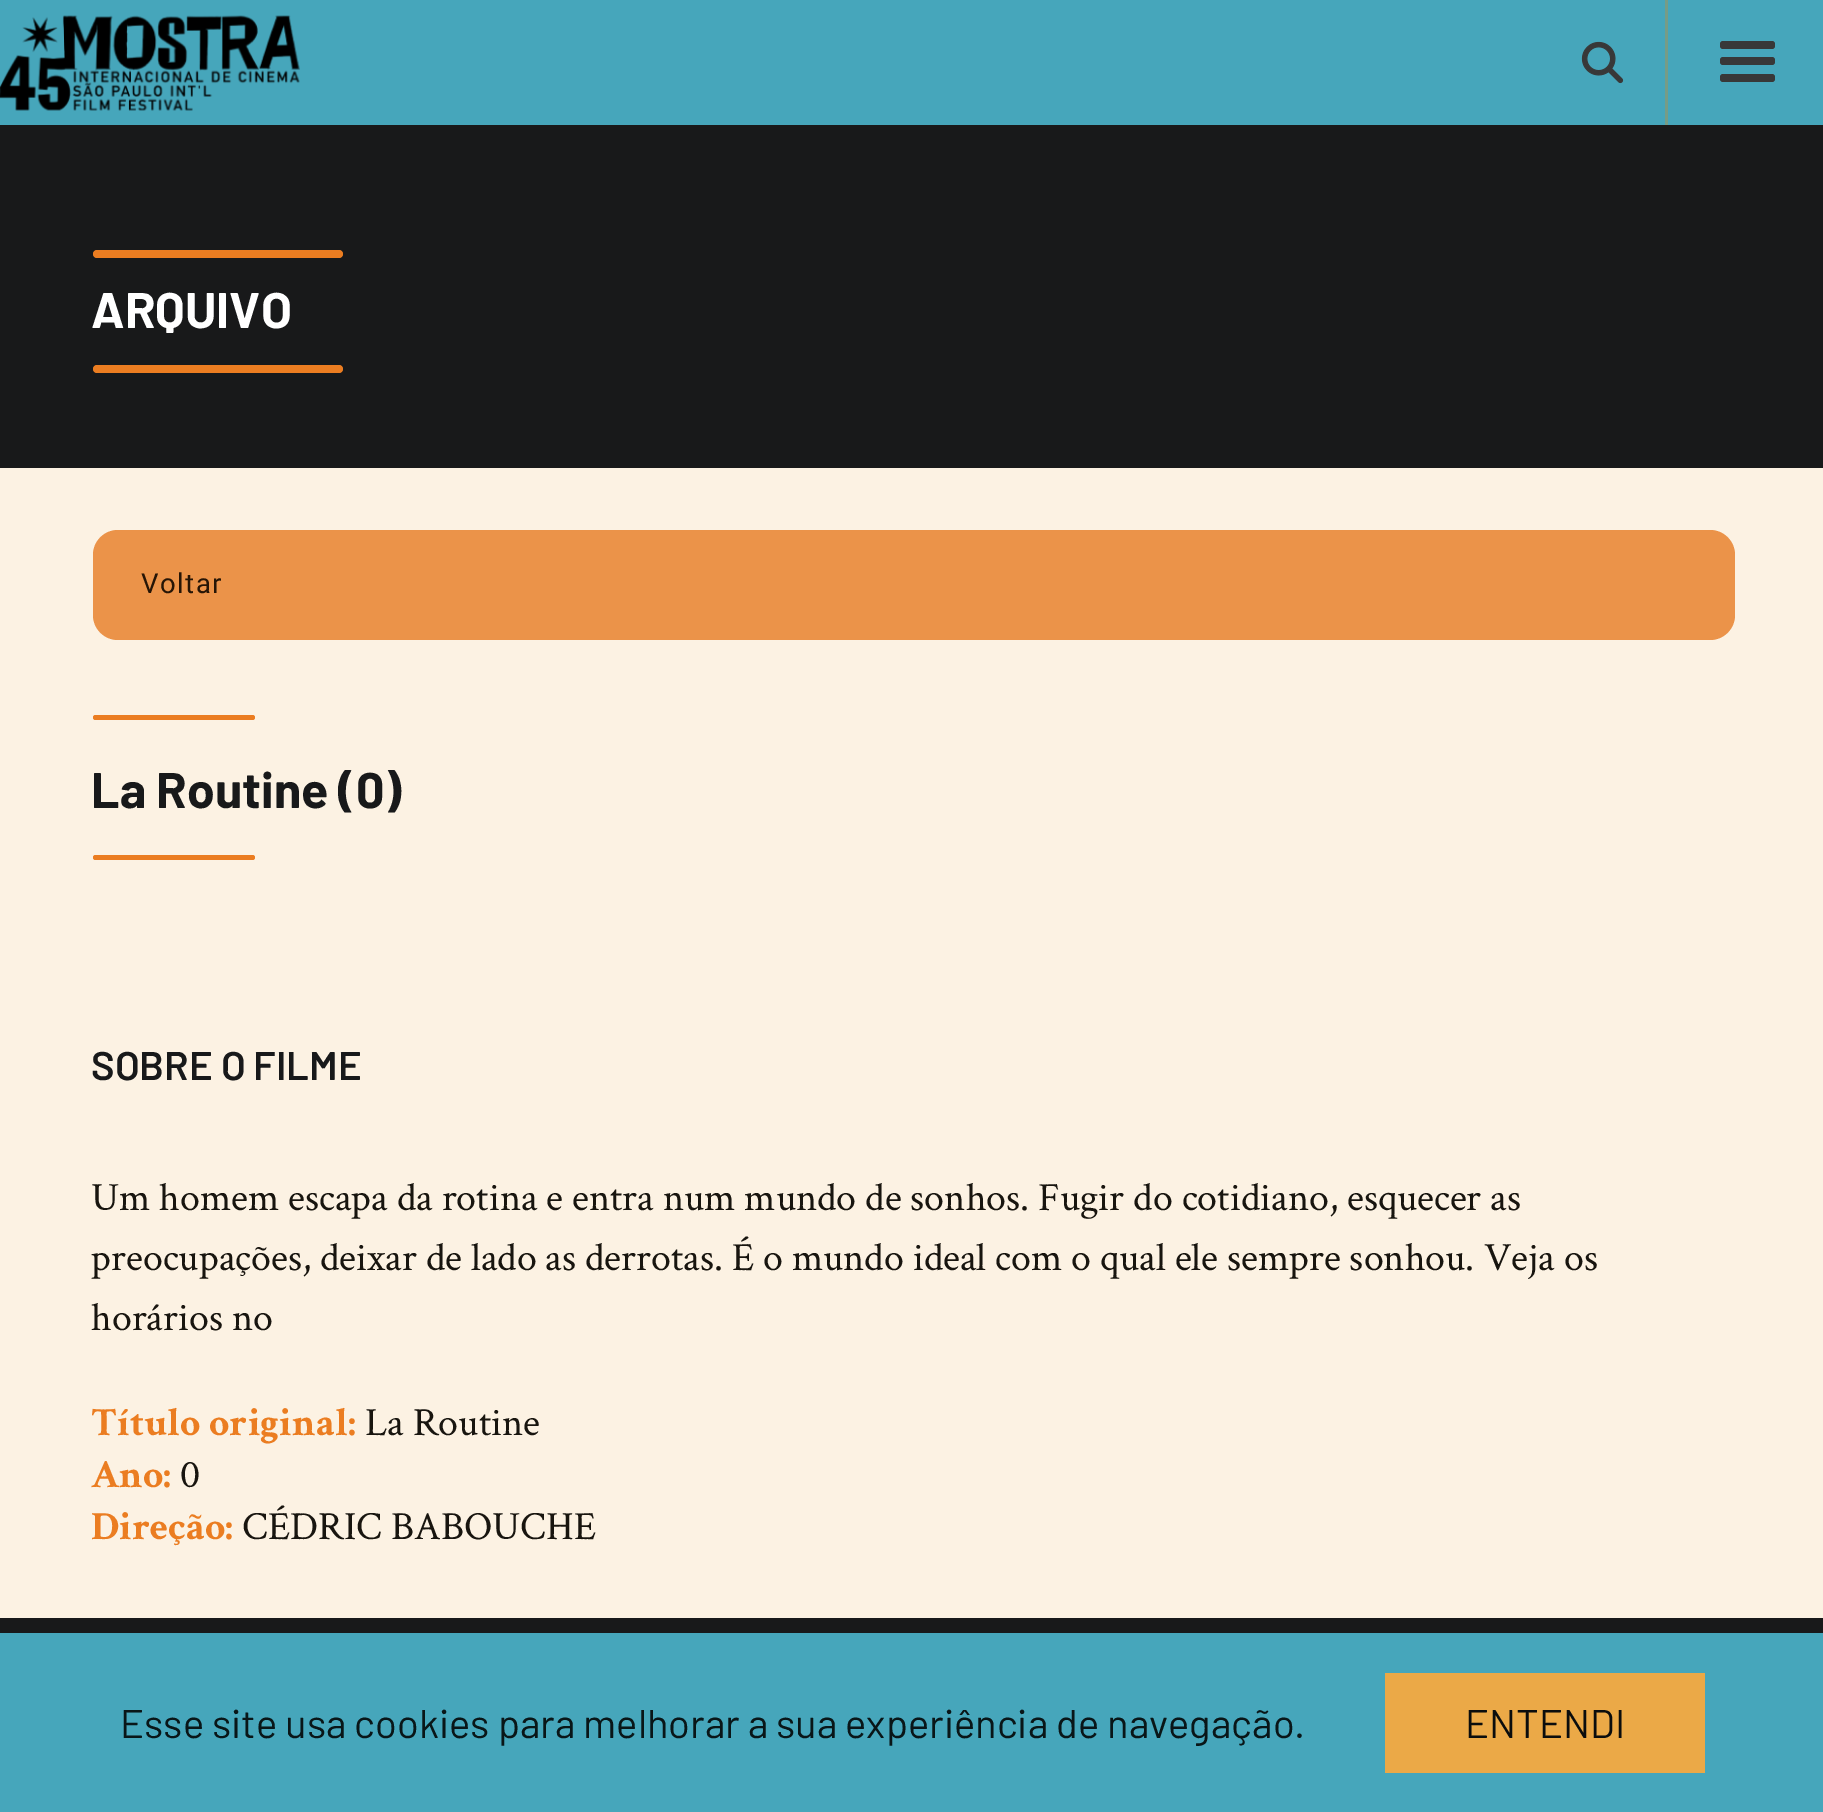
%!PS-Adobe-3.0
%%BoundingBox: 0 0 1823 1812
%%LanguageLevel: 3
%%Pages: 1
%%EndComments
%%BeginProlog
/rrect { 5 dict begin { /r /h /w /y /x } { exch def } forall
  x r add y moveto x w add y 2 copy h add r arct x w add y h add x 1 index r arct
  x y h add x y r arct x y 2 copy exch w add exch r arct closepath end } def
/drawimage { 5 dict begin { /h /w /y /x /name } { exch def } forall
  gsave x y translate w h scale
  w h 8 [w 0 0 h 0 0] name (r) file false 3 colorimage grestore end } def
%%EndProlog
%%BeginSetup
<< /PageSize [1823 1812] >> setpagedevice
%%EndSetup
%%Page: 1 1
0 1812 translate 1 -1 scale
4 setmiterlimit
0.988 0.949 0.89 setrgbcolor
0 0 1823 1812 rectfill
0.275 0.651 0.733 setrgbcolor
0 0 1823 125 rectfill
(images/1.raw) 0 15 300 96 drawimage
(images/2.raw) 1581 41 43 43 drawimage
0.467 0.612 0.522 setrgbcolor
1665 0 3 125 rectfill
0.22 setgray
1720 41 55 8 3 rrect fill
1720 57 55 8 3 rrect fill
1720 74 55 8 3 rrect fill
0.094 0.098 0.102 setrgbcolor
0 125 1823 343 rectfill
0.922 0.49 0.129 setrgbcolor
93 250 250 8 4 rrect fill
93 365 250 8 4 rrect fill
0.922 0.576 0.286 setrgbcolor
93 530 1642 110 25 rrect fill
0.922 0.49 0.129 setrgbcolor
93 715 162 5 2.5 rrect fill
93 855 162 5 2.5 rrect fill
0.094 0.098 0.102 setrgbcolor
0 1618 1823 15 rectfill
0.275 0.651 0.733 setrgbcolor
0 1633 1823 179 rectfill
0.922 0.663 0.278 setrgbcolor
1385 1673 320 100 rectfill
/Barlow-Bold [50 0 0 -50 0 0] selectfont
1 setgray
91 328 moveto (ARQUIVO) show
/Roboto-Regular [27.5 0 0 -27.5 0 0] selectfont
0.149 0.082 0.024 setrgbcolor
141 593 moveto 1.5 0 (Voltar) ashow
/Barlow-Bold [50 0 0 -50 0 0] selectfont
0.094 0.098 0.102 setrgbcolor
91 808 moveto (La Routine \(0\)) show
/Barlow-SemiBold [40 0 0 -40 0 0] selectfont
91 1080 moveto (SOBRE O FILME) show
/CrimsonText-Regular [40 0 0 -40 0 0] selectfont
0.094 0.082 0.059 setrgbcolor
91 1210 moveto (Um homem escapa da rotina e entra num mundo de sonhos. Fugir do cotidiano, esquecer as) show
91 1270 moveto (preocupações, deixar de lado as derrotas. É o mundo ideal com o qual ele sempre sonhou. Veja os) show
91 1330 moveto (horários no) show
/CrimsonText-Bold [40 0 0 -40 0 0] selectfont
0.922 0.49 0.129 setrgbcolor
91 1435 moveto (Título original:) show
/CrimsonText-Regular [40 0 0 -40 0 0] selectfont
0.094 0.082 0.059 setrgbcolor
365 1435 moveto (La Routine) show
/CrimsonText-Bold [40 0 0 -40 0 0] selectfont
0.922 0.49 0.129 setrgbcolor
91 1487 moveto (Ano:) show
/CrimsonText-Regular [40 0 0 -40 0 0] selectfont
0.094 0.082 0.059 setrgbcolor
180 1487 moveto (0) show
/CrimsonText-Bold [40 0 0 -40 0 0] selectfont
0.922 0.49 0.129 setrgbcolor
91 1539 moveto (Direção:) show
/CrimsonText-Regular [40 0 0 -40 0 0] selectfont
0.094 0.082 0.059 setrgbcolor
242 1539 moveto (CÉDRIC BABOUCHE) show
/Barlow-Regular [40 0 0 -40 0 0] selectfont
0.035 0.086 0.094 setrgbcolor
120 1738 moveto (Esse site usa cookies para melhorar a sua experiência de navegação.) show
0.043 0.051 0.051 setrgbcolor
1465 1738 moveto (ENTENDI) show
showpage
%%EOF
